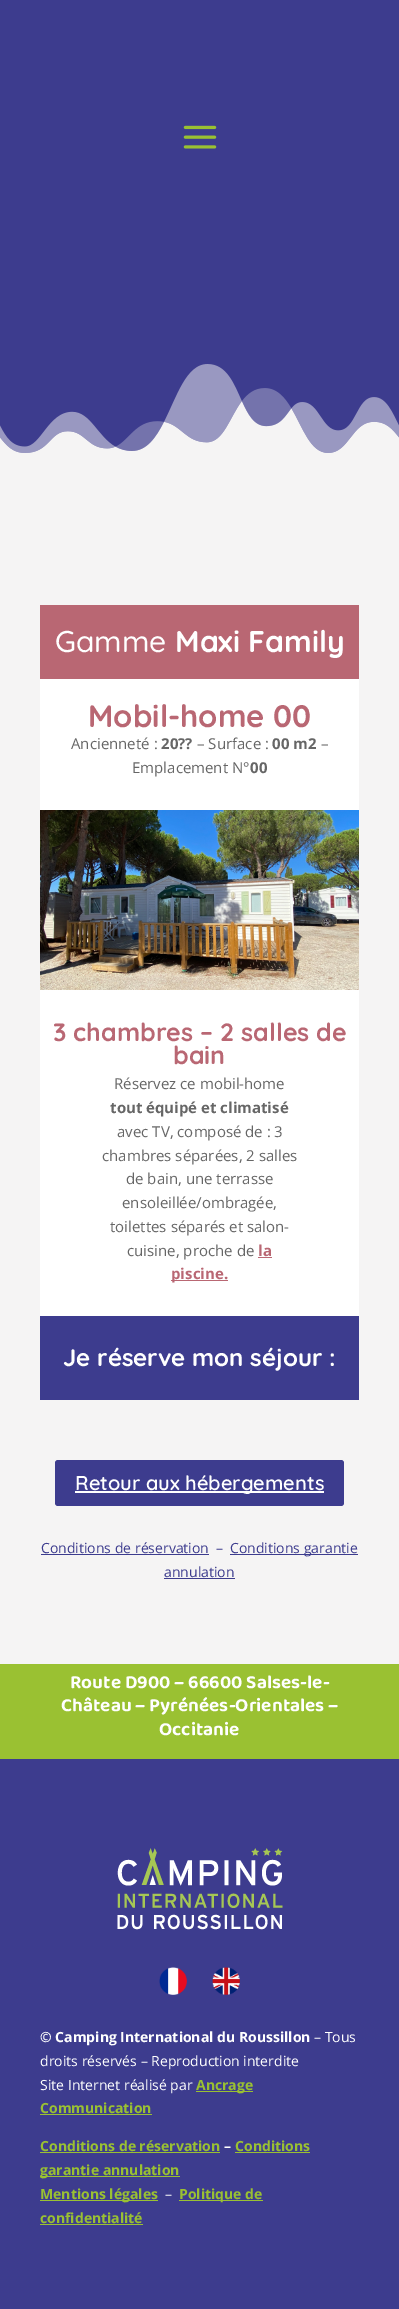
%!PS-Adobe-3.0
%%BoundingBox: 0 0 399 2309
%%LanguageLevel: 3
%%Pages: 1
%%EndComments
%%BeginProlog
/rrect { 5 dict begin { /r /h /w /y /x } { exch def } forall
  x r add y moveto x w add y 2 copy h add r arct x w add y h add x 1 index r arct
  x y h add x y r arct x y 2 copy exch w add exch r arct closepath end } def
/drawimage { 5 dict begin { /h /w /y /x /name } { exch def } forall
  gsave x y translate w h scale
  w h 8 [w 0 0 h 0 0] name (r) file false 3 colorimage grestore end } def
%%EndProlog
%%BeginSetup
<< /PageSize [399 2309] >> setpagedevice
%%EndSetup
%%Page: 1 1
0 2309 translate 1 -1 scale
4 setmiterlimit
0.239 0.235 0.557 setrgbcolor
0 0 399 2309 rectfill
(images/1.raw) 183 125 34 24 drawimage
(images/2.raw) 0 364 399 100 drawimage
0.961 0.957 0.957 setrgbcolor
0 464 399 1200 rectfill
1 setgray
40 679 319 637 rectfill
0.725 0.404 0.451 setrgbcolor
40 605 319 74 rectfill
(images/3.raw) 40 810 319 180 drawimage
258 1257 14 1 rectfill
171 1280 57 1 rectfill
0.239 0.235 0.557 setrgbcolor
40 1316 319 84 rectfill
55 1460 289 46 3 rrect fill
1 setgray
75 1491 249 2 rectfill
0.239 0.235 0.557 setrgbcolor
41 1554 168 1 rectfill
230 1554 128 1 rectfill
164 1578 71 1 rectfill
0.604 0.757 0.196 setrgbcolor
0 1664 399 95 rectfill
(images/4.raw) 117 1848 166 82 drawimage
(images/5.raw) 159 1967 28 28 drawimage
(images/6.raw) 212 1967 28 28 drawimage
196 2091 57 1 rectfill
40 2114 112 1 rectfill
40 2152 180 1 rectfill
235 2152 75 1 rectfill
40 2176 140 1 rectfill
40 2200 118 1 rectfill
179 2200 84 1 rectfill
40 2224 103 1 rectfill
/Quicksand-Medium [30 0 0 -30 0 0] selectfont
1 setgray
55 652 moveto (Gamme) show
/Quicksand-Bold [30 0 0 -30 0 0] selectfont
175 652 moveto (Maxi Family) show
/Quicksand-Bold [31 0 0 -31 0 0] selectfont
0.725 0.404 0.451 setrgbcolor
88 727 moveto (Mobil-home 00) show
/OpenSans-Regular [15 0 0 -15 0 0] selectfont
0.4 setgray
71 749 moveto (Ancienneté :) show
/OpenSans-Bold [15 0 0 -15 0 0] selectfont
161 749 moveto (20??) show
/OpenSans-Regular [15 0 0 -15 0 0] selectfont
197 749 moveto (– Surface :) show
/OpenSans-Bold [15 0 0 -15 0 0] selectfont
272 749 moveto (00 m2) show
/OpenSans-Regular [15 0 0 -15 0 0] selectfont
321 749 moveto (–) show
132 773 moveto (Emplacement N°) show
/OpenSans-Bold [15 0 0 -15 0 0] selectfont
250 773 moveto (00) show
/Quicksand-Bold [25 0 0 -25 0 0] selectfont
0.725 0.404 0.451 setrgbcolor
53 1041 moveto (3 chambres – 2 salles de) show
173 1064 moveto (bain) show
/OpenSans-Regular [15 0 0 -15 0 0] selectfont
0.4 setgray
114 1089 moveto (Réservez ce mobil-home) show
/OpenSans-Bold [15 0 0 -15 0 0] selectfont
110 1113 moveto (tout équipé et climatisé) show
/OpenSans-Regular [15 0 0 -15 0 0] selectfont
117 1137 moveto (avec TV, composé de : 3) show
102 1161 moveto (chambres séparées, 2 salles) show
126 1184 moveto (de bain, une terrasse) show
122 1208 moveto (ensoleillée/ombragée,) show
110 1232 moveto (toilettes séparés et salon-) show
127 1256 moveto (cuisine, proche de) show
/OpenSans-Bold [15 0 0 -15 0 0] selectfont
0.725 0.404 0.451 setrgbcolor
258 1256 moveto (la) show
171 1279 moveto (piscine.) show
/Quicksand-Bold [24 0 0 -24 0 0] selectfont
1 setgray
63 1366 moveto (Je réserve mon séjour :) show
/Quicksand-SemiBold [20 0 0 -20 0 0] selectfont
75 1490 moveto (Retour aux hébergements) show
/OpenSans-Regular [14 0 0 -14 0 0] selectfont
0.239 0.235 0.557 setrgbcolor
41 1553 moveto (Conditions de réservation) show
216 1553 moveto (–) show
230 1553 moveto (Conditions garantie) show
164 1577 moveto (annulation) show
/BalooTammudu2-Bold [19 0 0 -19 0 0] selectfont
1 setgray
70 1688 moveto (Route D900 – 66600 Salses-le-) show
61 1711 moveto (Château – Pyrénées-Orientales –) show
159 1735 moveto (Occitanie) show
/OpenSans-Bold [14 0 0 -14 0 0] selectfont
40 2042 moveto (© Camping International du Roussillon) show
/OpenSans-Regular [14 0 0 -14 0 0] selectfont
314 2042 moveto (– Tous) show
40 2066 moveto (droits réservés – Reproduction interdite) show
40 2090 moveto (Site Internet réalisé par) show
/OpenSans-Bold [14 0 0 -14 0 0] selectfont
0.604 0.757 0.196 setrgbcolor
196 2090 moveto (Ancrage) show
40 2113 moveto (Communication) show
40 2151 moveto (Conditions de réservation) show
1 setgray
224 2151 moveto (–) show
0.604 0.757 0.196 setrgbcolor
235 2151 moveto (Conditions) show
40 2175 moveto (garantie annulation) show
40 2199 moveto (Mentions légales) show
/OpenSans-Regular [14 0 0 -14 0 0] selectfont
1 setgray
165 2199 moveto (–) show
/OpenSans-Bold [14 0 0 -14 0 0] selectfont
0.604 0.757 0.196 setrgbcolor
179 2199 moveto (Politique de) show
40 2223 moveto (confidentialité) show
showpage
%%EOF
